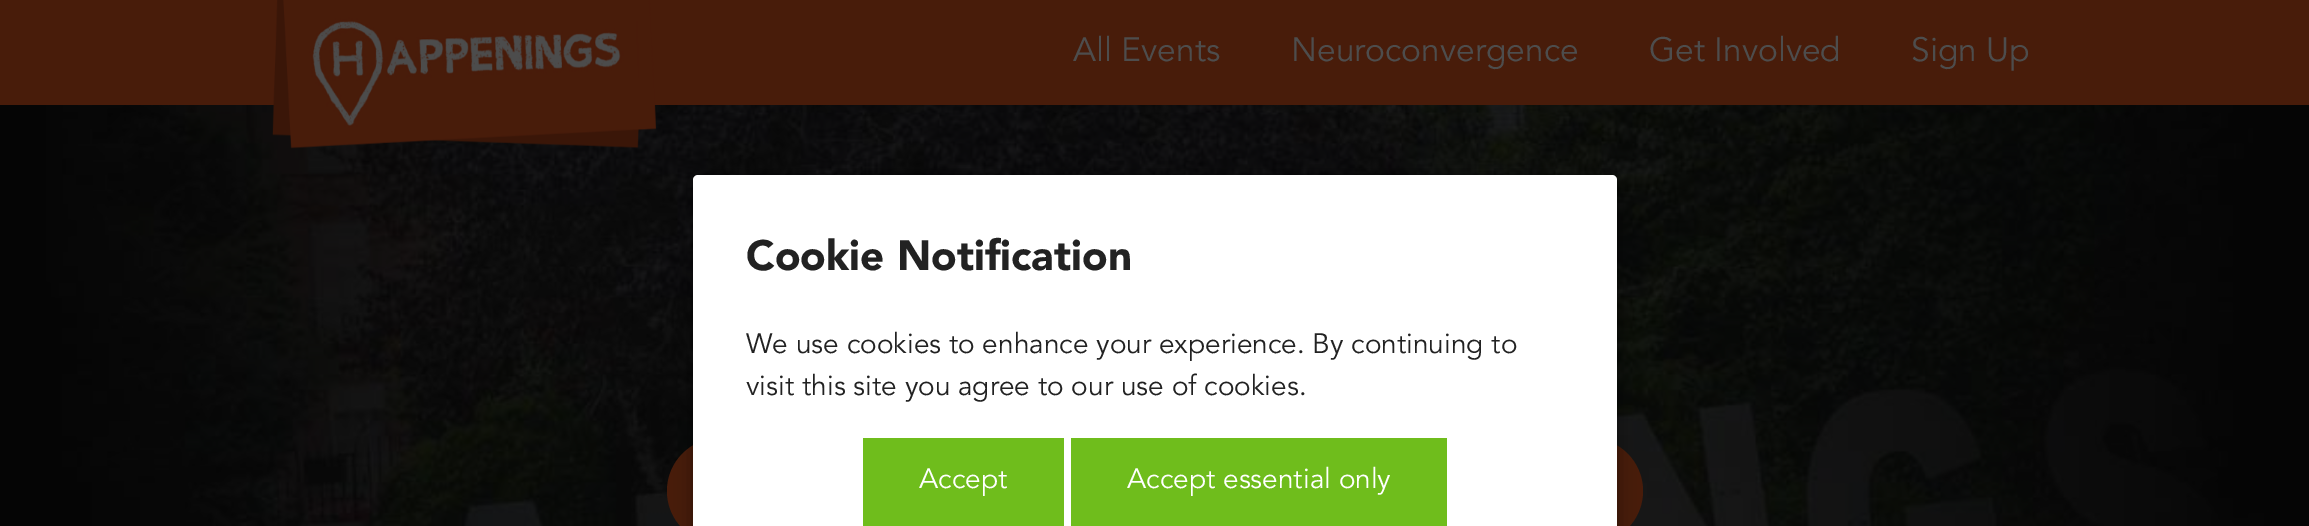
%!PS-Adobe-3.0
%%BoundingBox: 0 0 2309 526
%%LanguageLevel: 3
%%Pages: 1
%%EndComments
%%BeginProlog
/setalpha { dup .setfillconstantalpha .setstrokeconstantalpha } def
/rrect { 5 dict begin { /r /h /w /y /x } { exch def } forall
  x r add y moveto x w add y 2 copy h add r arct x w add y h add x 1 index r arct
  x y h add x y r arct x y 2 copy exch w add exch r arct closepath end } def
/softshadow { 12 dict begin { /a /b /q /h /w /y /x } { exch def } forall gsave /was 0 def
  9 -2 -9 { dup b mul 4 div /e exch def 1 sub .425 mul 2.718 exch exp 1 add a .99 .min exch div /now exch def
    1 1 now sub 1 was sub div sub setalpha /was now def
    w h .min e 2 mul add 0 gt { x e sub y e sub w e 2 mul add h e 2 mul add
      q e add b .6 mul add w h .min 2 div e add .min 0 .max rrect fill } if } for grestore end } def
/drawimage { 5 dict begin { /h /w /y /x /name } { exch def } forall
  gsave x y translate w h scale
  w h 8 [w 0 0 h 0 0] name (r) file false 3 colorimage grestore end } def
%%EndProlog
%%BeginSetup
<< /PageSize [2309 526] /PageUsesTransparency true >> setpagedevice
%%EndSetup
%%Page: 1 1
0 .pushpdf14devicefilter
0 526 translate 1 -1 scale
4 setmiterlimit
1 setgray
0 0 2309 526 rectfill
0.282 0.11 0.039 setrgbcolor
0 0 2309 105 rectfill
(images/2.raw) 0 105 2309 421 drawimage
(images/1.raw) 272 0 384 149 drawimage
667 438 976 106 53 rrect fill
0 setgray
693 175 924 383 5 9 0.4 softshadow
1 setgray
693 175 924 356 5 rrect fill
0.435 0.741 0.11 setrgbcolor
863 438 201 88 rectfill
1071 438 376 88 rectfill
/Avenir-Regular [33.5 0 0 -33.5 0 0] selectfont
0.302 setgray
1073 61 moveto (All Events) show
1291 61 moveto (Neuroconvergence) show
1649 61 moveto (Get Involved) show
1911 61 moveto (Sign Up) show
/Avenir-Black [42 0 0 -42 0 0] selectfont
0.133 setgray
746 270 moveto (Cookie Notification) show
/Avenir-Regular [28 0 0 -28 0 0] selectfont
746 353 moveto (We use cookies to enhance your experience. By continuing to) show
746 395 moveto (visit this site you agree to our use of cookies.) show
1 setgray
919 488 moveto (Accept) show
1127 488 moveto (Accept essential only) show
.poppdf14devicefilter showpage
%%EOF
